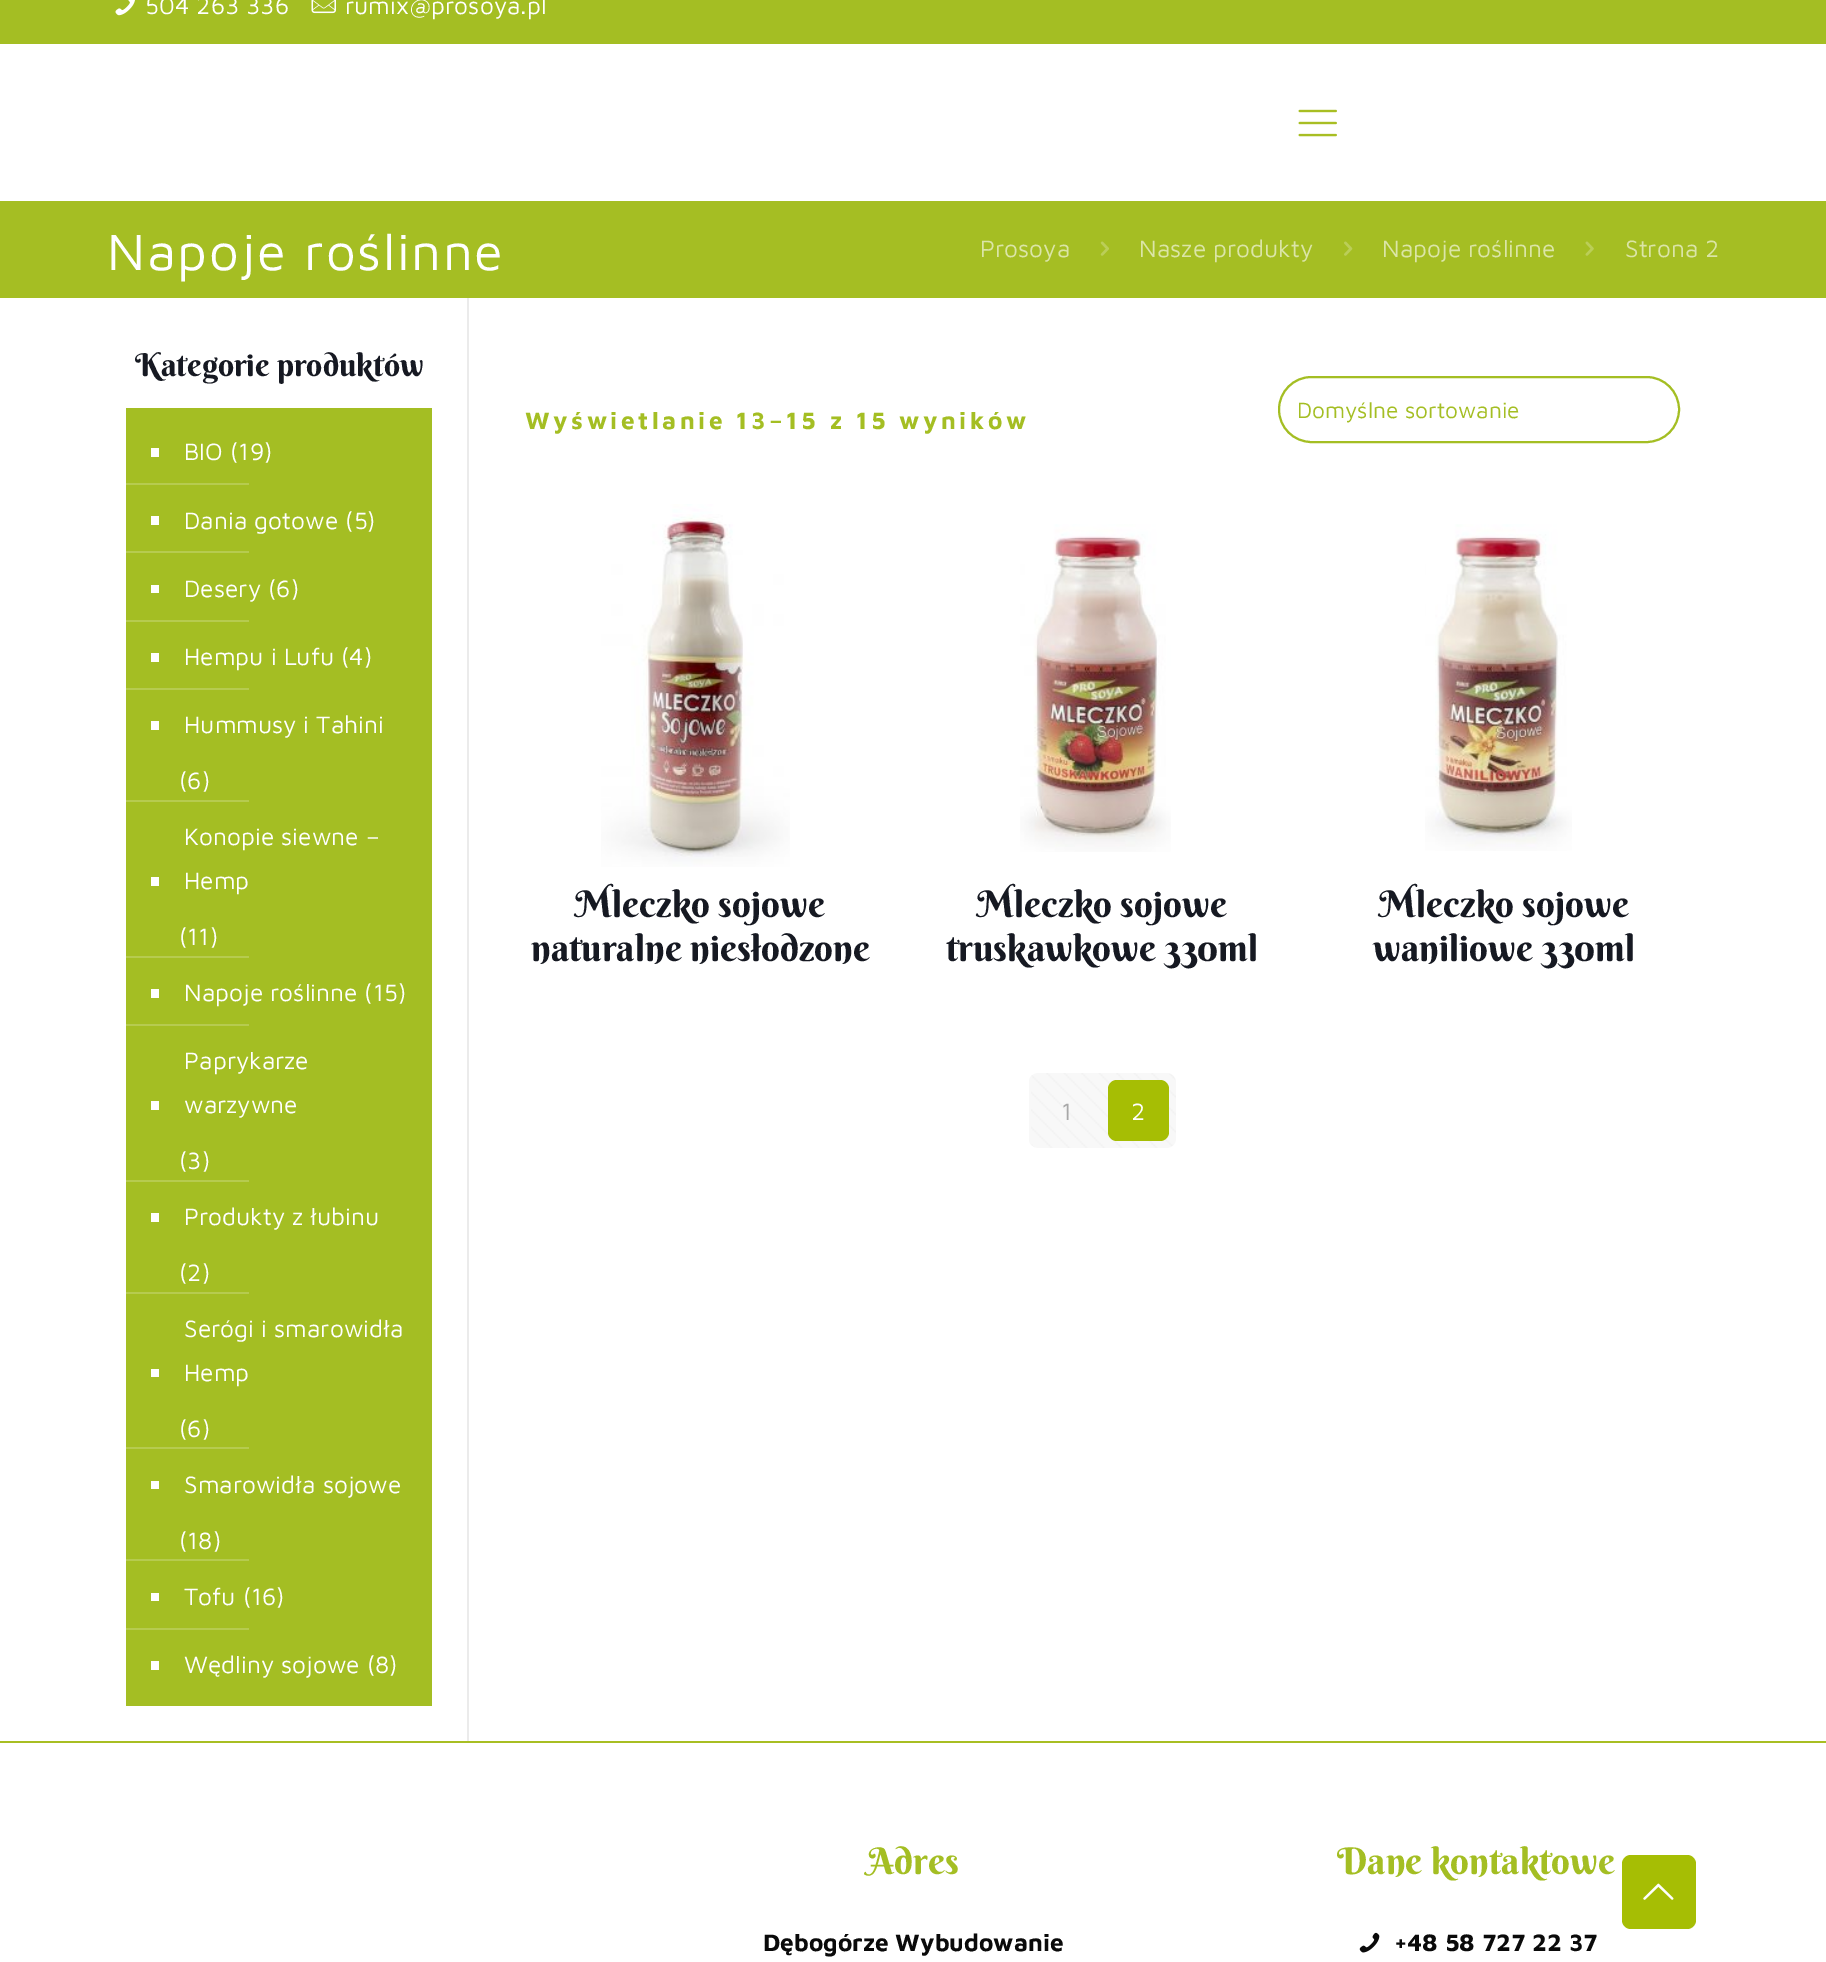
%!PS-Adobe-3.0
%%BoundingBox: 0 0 1826 1962
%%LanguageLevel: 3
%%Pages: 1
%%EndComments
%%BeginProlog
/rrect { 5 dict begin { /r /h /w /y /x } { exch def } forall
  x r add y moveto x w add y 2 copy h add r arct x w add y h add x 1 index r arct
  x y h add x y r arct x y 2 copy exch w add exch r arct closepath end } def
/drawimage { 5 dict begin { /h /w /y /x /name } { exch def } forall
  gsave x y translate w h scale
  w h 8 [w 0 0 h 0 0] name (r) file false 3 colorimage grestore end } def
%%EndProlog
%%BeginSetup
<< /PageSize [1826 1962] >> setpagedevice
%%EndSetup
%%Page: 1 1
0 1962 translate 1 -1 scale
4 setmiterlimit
1 setgray
0 0 1826 1962 rectfill
0.643 0.745 0.137 setrgbcolor
0 0 1826 44 rectfill
(images/1.raw) 115 0 20 16 drawimage
(images/2.raw) 311 0 25 14 drawimage
(images/3.raw) 1298 109 39 28 drawimage
0.647 0.745 0.137 setrgbcolor
0 201 1826 97 rectfill
(images/4.raw) 1100 241 9 15 drawimage
(images/5.raw) 1344 241 9 15 drawimage
(images/6.raw) 1585 241 9 15 drawimage
0.922 setgray
467 298 2 1443 rectfill
0.643 0.745 0.137 setrgbcolor
126 408 306 1298 rectfill
1 setgray
151 448 8 9 rectfill
0.714 0.796 0.31 setrgbcolor
126 483 123 2 rectfill
1 setgray
151 516 8 9 rectfill
0.714 0.796 0.31 setrgbcolor
126 551 123 2 rectfill
1 setgray
151 585 8 8 rectfill
0.714 0.796 0.31 setrgbcolor
126 620 123 2 rectfill
1 setgray
151 653 8 9 rectfill
0.714 0.796 0.31 setrgbcolor
126 688 123 2 rectfill
1 setgray
151 721 8 9 rectfill
0.714 0.796 0.31 setrgbcolor
126 800 123 2 rectfill
1 setgray
151 877 8 9 rectfill
0.714 0.796 0.31 setrgbcolor
126 956 123 2 rectfill
1 setgray
151 989 8 9 rectfill
0.714 0.796 0.31 setrgbcolor
126 1024 123 2 rectfill
1 setgray
151 1101 8 9 rectfill
0.714 0.796 0.31 setrgbcolor
126 1180 123 2 rectfill
1 setgray
151 1213 8 9 rectfill
0.714 0.796 0.31 setrgbcolor
126 1292 123 2 rectfill
1 setgray
151 1369 8 8 rectfill
0.714 0.796 0.31 setrgbcolor
126 1447 123 2 rectfill
1 setgray
151 1481 8 8 rectfill
0.714 0.796 0.31 setrgbcolor
126 1559 123 2 rectfill
1 setgray
151 1593 8 8 rectfill
0.714 0.796 0.31 setrgbcolor
126 1628 123 2 rectfill
1 setgray
151 1661 8 9 rectfill
0.643 0.745 0.137 setrgbcolor
2 setlinewidth
1279 377 400 65 32.5 rrect stroke
(images/7.raw) 601 504 189 363 drawimage
(images/8.raw) 1020 524 151 328 drawimage
(images/9.raw) 1425 524 147 327 drawimage
0.973 setgray
1029 1073 147 75 9 rrect fill
(images/10.raw) 1031 1073 145 75 drawimage
0.651 0.745 0.016 setrgbcolor
1108 1080 61 61 9 rrect fill
0.659 0.745 0.137 setrgbcolor
0 1741 1826 2 rectfill
(images/11.raw) 1359 1932 21 21 drawimage
0.651 0.745 0.016 setrgbcolor
1622 1855 74 74 9 rrect fill
(images/12.raw) 1643 1883 31 17 drawimage
/MavenPro-Regular [24.5 0 0 -24.5 0 0] selectfont
1 setgray
145 14 moveto (504 263 336) show
345 14 moveto (rumix@prosoya.pl) show
/MavenPro-Regular [52.5 0 0 -52.5 0 0] selectfont
107 270 moveto 1.75 0 (Napoje roślinne) ashow
/MavenPro-Regular [24.5 0 0 -24.5 0 0] selectfont
0.859 0.898 0.655 setrgbcolor
980 257 moveto (Prosoya) show
1139 257 moveto (Nasze produkty) show
1382 257 moveto (Napoje roślinne) show
1625 257 moveto (Strona 2) show
/BerkshireSwash-Regular [31.5 0 0 -31.5 0 0] selectfont
0.086 0.098 0.133 setrgbcolor
135 376 moveto (Kategorie produktów) show
/MavenPro-Regular [24.5 0 0 -24.5 0 0] selectfont
1 setgray
184 460 moveto (BIO \(19\)) show
184 529 moveto (Dania gotowe \(5\)) show
184 597 moveto (Desery \(6\)) show
184 665 moveto (Hempu i Lufu \(4\)) show
184 733 moveto (Hummusy i Tahini) show
179 789 moveto (\(6\)) show
184 845 moveto (Konopie siewne –) show
184 889 moveto (Hemp) show
179 945 moveto (\(11\)) show
184 1001 moveto (Napoje roślinne \(15\)) show
184 1069 moveto (Paprykarze) show
184 1113 moveto (warzywne) show
179 1169 moveto (\(3\)) show
184 1225 moveto (Produkty z łubinu) show
179 1281 moveto (\(2\)) show
184 1337 moveto (Serógi i smarowidła) show
184 1381 moveto (Hemp) show
179 1437 moveto (\(6\)) show
184 1493 moveto (Smarowidła sojowe) show
179 1549 moveto (\(18\)) show
184 1605 moveto (Tofu \(16\)) show
184 1673 moveto (Wędliny sojowe \(8\)) show
/MavenPro-Bold [24.5 0 0 -24.5 0 0] selectfont
0.643 0.745 0.137 setrgbcolor
525 429 moveto 3.5 0 (Wyświetlanie 13–15 z 15 wyników) ashow
/MavenPro-Regular [22.75 0 0 -22.75 0 0] selectfont
1297 418 moveto (Domyślne sortowanie) show
/BerkshireSwash-Regular [36.75 0 0 -36.75 0 0] selectfont
0.086 0.098 0.133 setrgbcolor
575 917 moveto (Mleczko sojowe) show
531 961 moveto (naturalne niesłodzone) show
977 917 moveto (Mleczko sojowe) show
946 961 moveto (truskawkowe 330ml) show
1379 917 moveto (Mleczko sojowe) show
1373 961 moveto (waniliowe 330ml) show
/MavenPro-Regular [24.5 0 0 -24.5 0 0] selectfont
0.659 setgray
1061 1120 moveto (1) show
1 setgray
1131 1120 moveto (2) show
/BerkshireSwash-Regular [36.75 0 0 -36.75 0 0] selectfont
0.643 0.745 0.137 setrgbcolor
867 1874 moveto (Adres) show
/MavenPro-Bold [24.5 0 0 -24.5 0 0] selectfont
0.039 setgray
763 1951 moveto (Dębogórze Wybudowanie) show
/BerkshireSwash-Regular [36.75 0 0 -36.75 0 0] selectfont
0.643 0.745 0.137 setrgbcolor
1337 1874 moveto (Dane kontaktowe) show
/MavenPro-Bold [24.5 0 0 -24.5 0 0] selectfont
0.039 setgray
1394 1951 moveto (+48 58 727 22 37) show
showpage
%%EOF
